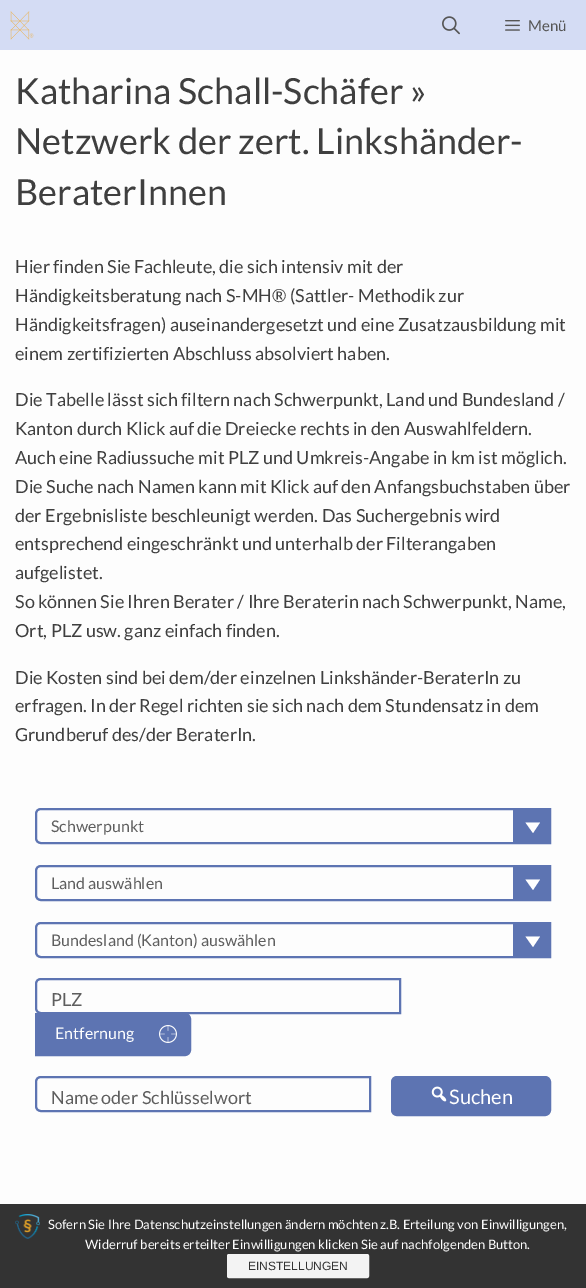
%!PS-Adobe-3.0
%%BoundingBox: 0 0 586 1288
%%LanguageLevel: 3
%%Pages: 1
%%EndComments
%%BeginProlog
/rrect { 5 dict begin { /r /h /w /y /x } { exch def } forall
  x r add y moveto x w add y 2 copy h add r arct x w add y h add x 1 index r arct
  x y h add x y r arct x y 2 copy exch w add exch r arct closepath end } def
/drawimage { 5 dict begin { /h /w /y /x /name } { exch def } forall
  gsave x y translate w h scale
  w h 8 [w 0 0 h 0 0] name (r) file false 3 colorimage grestore end } def
%%EndProlog
%%BeginSetup
<< /PageSize [586 1288] >> setpagedevice
%%EndSetup
%%Page: 1 1
0 1288 translate 1 -1 scale
4 setmiterlimit
0.831 0.863 0.957 setrgbcolor
0 0 586 1288 rectfill
(images/1.raw) 10 11 24 29 drawimage
(images/2.raw) 442 16 18 19 drawimage
(images/3.raw) 505 20 15 11 drawimage
0.992 setgray
0 50 586 1154 rectfill
0.365 0.455 0.698 setrgbcolor
2 setlinewidth
newpath 41 809 moveto 550 809 lineto 550 843 lineto 41 843 lineto 38 843 36 841 36 838 curveto 36 814 lineto 36 811 38 809 41 809 curveto closepath stroke
513 810 36 32 rectfill
1 setgray
newpath 540 822.5 moveto 533 833 lineto 525.5 822.5 lineto closepath fill
0.365 0.455 0.698 setrgbcolor
newpath 41 866 moveto 550 866 lineto 550 900 lineto 41 900 lineto 38 900 36 898 36 895 curveto 36 871 lineto 36 868 38 866 41 866 curveto closepath stroke
513 867 36 32 rectfill
1 setgray
newpath 540 879.5 moveto 533 890 lineto 525.5 879.5 lineto closepath fill
0.365 0.455 0.698 setrgbcolor
newpath 41 923 moveto 550 923 lineto 550 957 lineto 41 957 lineto 38 957 36 955 36 952 curveto 36 928 lineto 36 925 38 923 41 923 curveto closepath stroke
513 924 36 32 rectfill
1 setgray
newpath 540 936.5 moveto 533 947 lineto 525.5 936.5 lineto closepath fill
0.365 0.455 0.698 setrgbcolor
newpath 41 979 moveto 400 979 lineto 400 1013 lineto 41 1013 lineto 38 1013 36 1011 36 1008 curveto 36 984 lineto 36 981 38 979 41 979 curveto closepath stroke
newpath 36.5 1014.5 moveto 185 1014.5 lineto 187.5 1014.5 189.5 1016.5 189.5 1019 curveto 189.5 1050 lineto 189.5 1052.5 187.5 1054.5 185 1054.5 curveto 36.5 1054.5 lineto closepath gsave fill grestore
3 setlinewidth
stroke
(images/4.raw) 159 1025 18 18 drawimage
2 setlinewidth
newpath 41 1077 moveto 370 1077 lineto 370 1111 lineto 41 1111 lineto 38 1111 36 1109 36 1106 curveto 36 1082 lineto 36 1079 38 1077 41 1077 curveto closepath stroke
392 1077 158 38 5 rrect gsave fill grestore
stroke
(images/5.raw) 431 1086 16 16 drawimage
0.2 setgray
0 1204 586 84 rectfill
(images/6.raw) 15 1214 25 25 drawimage
0.953 setgray
227.5 1254.5 141 23 1.5 rrect gsave fill grestore
1 setlinewidth
stroke
/Lato-Regular [15 0 0 -15 0 0] selectfont
0.337 setgray
528 31 moveto (Menü) show
/Lato-Regular [36 0 0 -36 0 0] selectfont
0.247 setgray
15 104 moveto (Katharina Schall-Schäfer ») show
15 154 moveto (Netzwerk der zert. Linkshänder-) show
15 205 moveto (BeraterInnen) show
/Lato-Regular [18 0 0 -18 0 0] selectfont
15 273 moveto (Hier finden Sie Fachleute, die sich intensiv mit der) show
15 302 moveto (Händigkeitsberatung nach S-MH® \(Sattler- Methodik zur) show
15 331 moveto (Händigkeitsfragen\) auseinandergesetzt und eine Zusatzausbildung mit) show
15 360 moveto (einem zertifizierten Abschluss absolviert haben.) show
15 406 moveto (Die Tabelle lässt sich filtern nach Schwerpunkt, Land und Bundesland /) show
15 435 moveto (Kanton durch Klick auf die Dreiecke rechts in den Auswahlfeldern.) show
15 464 moveto (Auch eine Radiussuche mit PLZ und Umkreis-Angabe in km ist möglich.) show
15 493 moveto (Die Suche nach Namen kann mit Klick auf den Anfangsbuchstaben über) show
15 522 moveto (der Ergebnisliste beschleunigt werden. Das Suchergebnis wird) show
15 550 moveto (entsprechend eingeschränkt und unterhalb der Filterangaben) show
15 579 moveto (aufgelistet.) show
15 608 moveto (So können Sie Ihren Berater / Ihre Beraterin nach Schwerpunkt, Name,) show
15 637 moveto (Ort, PLZ usw. ganz einfach finden.) show
15 684 moveto (Die Kosten sind bei dem/der einzelnen Linkshänder-BeraterIn zu) show
15 712 moveto (erfragen. In der Regel richten sie sich nach dem Stundensatz in dem) show
15 741 moveto (Grundberuf des/der BeraterIn.) show
/Lato-Regular [16 0 0 -16 0 0] selectfont
0.369 setgray
51 832 moveto (Schwerpunkt) show
51 889 moveto (Land auswählen) show
51 946 moveto (Bundesland \(Kanton\) auswählen) show
/Lato-Regular [18 0 0 -18 0 0] selectfont
51 1006 moveto (PLZ) show
/Lato-Regular [16 0 0 -16 0 0] selectfont
1 setgray
55 1039 moveto (Entfernung) show
/Lato-Regular [18 0 0 -18 0 0] selectfont
0.369 setgray
51 1104 moveto (Name oder Schlüsselwort) show
/Lato-Regular [20 0 0 -20 0 0] selectfont
1 setgray
449 1104 moveto (Suchen) show
/Lato-Regular [13 0 0 -13 0 0] selectfont
48 1229 moveto (Sofern Sie Ihre Datenschutzeinstellungen ändern möchten z.B. Erteilung von Einwilligungen,) show
85 1249 moveto (Widerruf bereits erteilter Einwilligungen klicken Sie auf nachfolgenden Button.) show
/LiberationSans-Regular [12 0 0 -12 0 0] selectfont
0.2 setgray
248 1270 moveto (EINSTELLUNGEN) show
showpage
%%EOF
